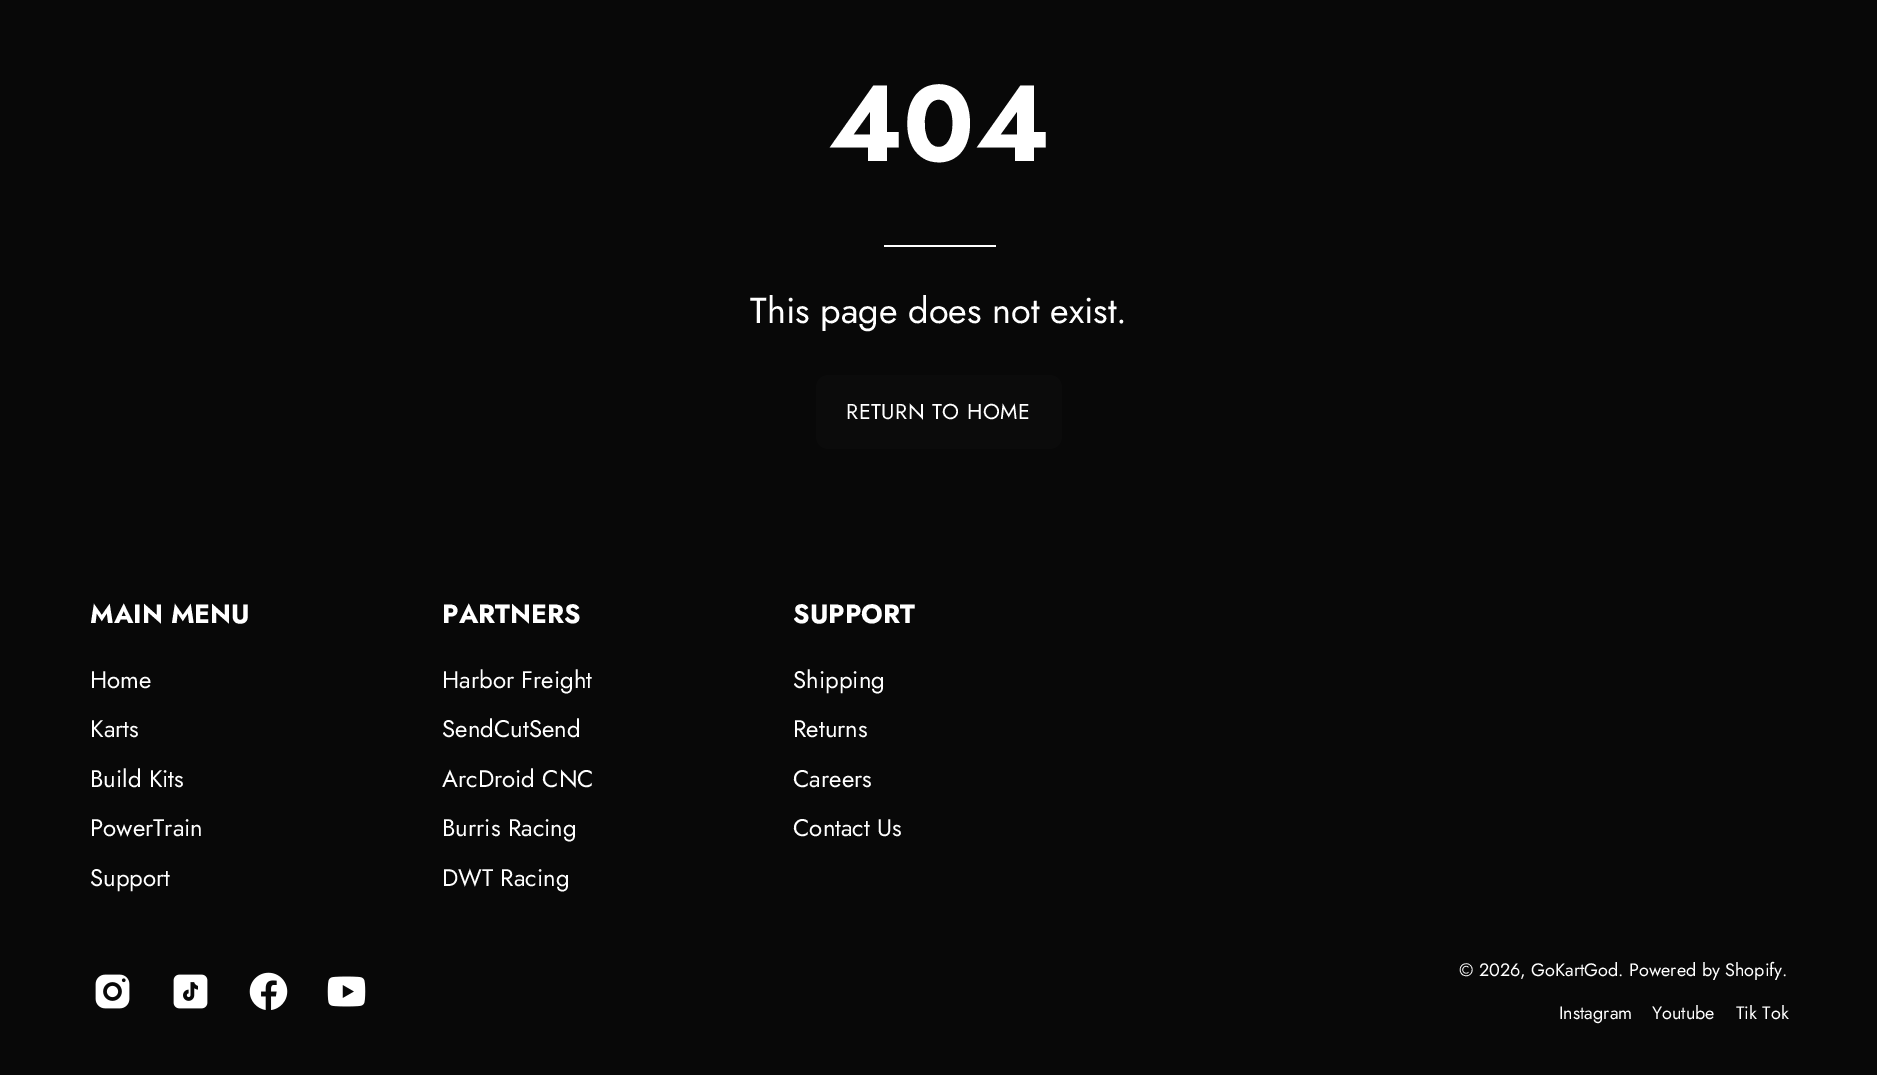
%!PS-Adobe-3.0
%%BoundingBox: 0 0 1877 1075
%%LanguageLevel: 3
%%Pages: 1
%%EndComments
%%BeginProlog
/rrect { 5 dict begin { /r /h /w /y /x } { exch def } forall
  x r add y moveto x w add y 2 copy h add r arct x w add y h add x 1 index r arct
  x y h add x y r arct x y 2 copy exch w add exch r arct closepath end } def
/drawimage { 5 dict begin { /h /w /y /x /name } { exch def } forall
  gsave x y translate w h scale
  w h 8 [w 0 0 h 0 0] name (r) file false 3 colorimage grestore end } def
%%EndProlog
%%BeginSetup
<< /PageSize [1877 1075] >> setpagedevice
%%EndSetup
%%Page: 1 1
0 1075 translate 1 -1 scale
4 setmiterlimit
0.031 setgray
0 0 1877 1075 rectfill
1 setgray
884 245 112 2 rectfill
0.043 setgray
816 375 246 74 12 rrect fill
(images/1.raw) 95 974 35 35 drawimage
(images/2.raw) 173 974 35 35 drawimage
(images/3.raw) 249 972 39 38 drawimage
(images/4.raw) 327 976 39 31 drawimage
/Jost-Bold [108 0 0 -108 0 0] selectfont
1 setgray
828 161 moveto (404) show
/Jost-Regular [36 0 0 -36 0 0] selectfont
750 323 moveto (This page does not exist.) show
/Jost-Regular [21.5 0 0 -21.5 0 0] selectfont
846 419 moveto 0.5 0 (RETURN TO HOME) ashow
/Jost-Bold [26.5 0 0 -26.5 0 0] selectfont
90 623 moveto (MAIN MENU) show
/Jost-Regular [24 0 0 -24 0 0] selectfont
90 688 moveto (Home) show
90 737 moveto (Karts) show
90 787 moveto (Build Kits) show
90 836 moveto (PowerTrain) show
90 886 moveto (Support) show
/Jost-Bold [26.5 0 0 -26.5 0 0] selectfont
442 623 moveto (PARTNERS) show
/Jost-Regular [24 0 0 -24 0 0] selectfont
442 688 moveto (Harbor Freight) show
442 737 moveto (SendCutSend) show
442 787 moveto (ArcDroid CNC) show
442 836 moveto (Burris Racing) show
442 886 moveto (DWT Racing) show
/Jost-Bold [26.5 0 0 -26.5 0 0] selectfont
793 623 moveto (SUPPORT) show
/Jost-Regular [24 0 0 -24 0 0] selectfont
793 688 moveto (Shipping) show
793 737 moveto (Returns) show
793 787 moveto (Careers) show
793 836 moveto (Contact Us) show
/Jost-Regular [18 0 0 -18 0 0] selectfont
1459 976 moveto (© 2026, GoKartGod. Powered by Shopify.) show
1559 1019 moveto (Instagram) show
1652 1019 moveto (Youtube) show
1736 1019 moveto (Tik Tok) show
showpage
%%EOF
